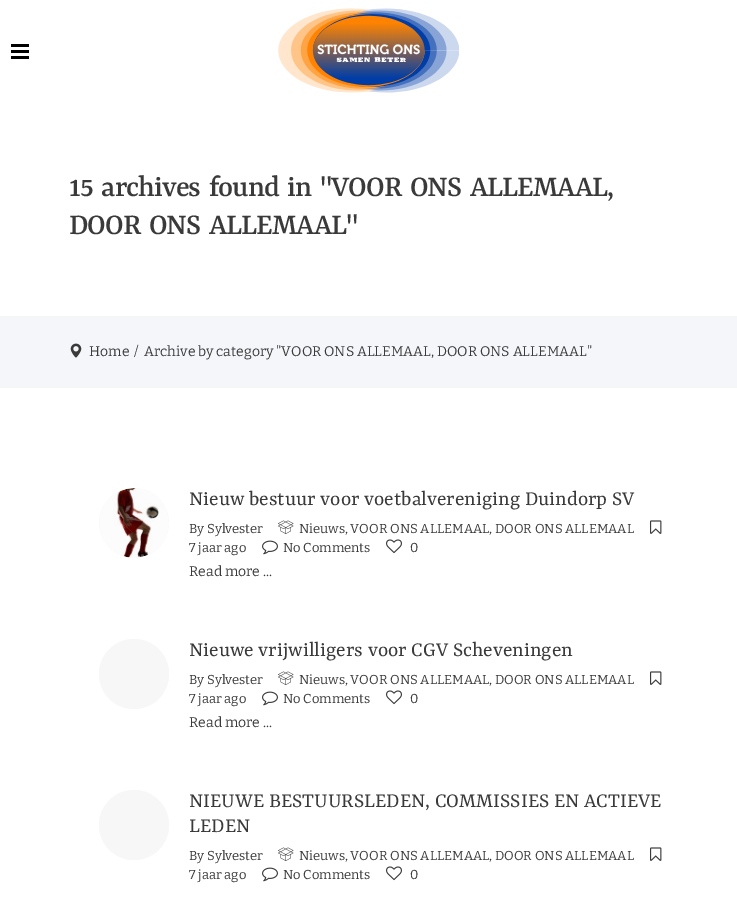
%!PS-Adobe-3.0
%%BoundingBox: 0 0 737 899
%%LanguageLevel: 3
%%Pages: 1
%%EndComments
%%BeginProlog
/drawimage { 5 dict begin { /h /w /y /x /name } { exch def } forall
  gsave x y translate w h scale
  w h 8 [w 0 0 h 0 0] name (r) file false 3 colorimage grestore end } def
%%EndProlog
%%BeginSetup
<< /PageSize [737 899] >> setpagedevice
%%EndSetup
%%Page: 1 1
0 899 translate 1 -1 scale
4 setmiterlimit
1 setgray
0 0 737 899 rectfill
0 setgray
11 44 18 3 rectfill
11 50 18 3 rectfill
11 56 18 3 rectfill
(images/1.raw) 278 8 181 85 drawimage
0.961 0.965 0.98 setrgbcolor
0 316 737 72 rectfill
(images/2.raw) 70 343 12 15 drawimage
0.969 setgray
newpath 134 523 35 0 360 arc closepath fill
(images/3.raw) 99 488 70 70 drawimage
(images/4.raw) 278 520 16 14 drawimage
(images/5.raw) 650 520 12 14 drawimage
(images/6.raw) 262 540 16 15 drawimage
(images/7.raw) 386 539 16 15 drawimage
newpath 134 674 35 0 360 arc closepath fill
(images/4.raw) 278 671 16 14 drawimage
(images/5.raw) 650 671 12 14 drawimage
(images/6.raw) 262 691 16 15 drawimage
(images/7.raw) 386 690 16 15 drawimage
newpath 134 825 35 0 360 arc closepath fill
(images/4.raw) 278 847 16 14 drawimage
(images/5.raw) 650 847 12 14 drawimage
(images/6.raw) 262 867 16 15 drawimage
(images/7.raw) 386 866 16 15 drawimage
/Yrsa-Medium [32 0 0 -32 0 0] selectfont
0.227 setgray
69 196 moveto 3 0 32 -1 0 (15 archives found in "VOOR ONS ALLEMAAL,) awidthshow
69 234 moveto 3 0 32 -1 0 (DOOR ONS ALLEMAAL") awidthshow
/Bitter-Thin [14 0 0 -14 0 0] selectfont
89 356 moveto (Home) show
134 356 moveto (/) show
144 356 moveto (Archive by category "VOOR ONS ALLEMAAL, DOOR ONS ALLEMAAL") show
/Yrsa-Regular [22 0 0 -22 0 0] selectfont
189 505 moveto (Nieuw bestuur voor voetbalvereniging Duindorp SV) show
/Bitter-Thin [13 0 0 -13 0 0] selectfont
189 533 moveto (By Sylvester) show
299 533 moveto (Nieuws, VOOR ONS ALLEMAAL, DOOR ONS ALLEMAAL) show
189 552 moveto (7 jaar ago) show
283 552 moveto (No Comments) show
410 552 moveto (0) show
/Bitter-Thin [14 0 0 -14 0 0] selectfont
189 576 moveto (Read more ...) show
/Yrsa-Regular [22 0 0 -22 0 0] selectfont
189 656 moveto (Nieuwe vrijwilligers voor CGV Scheveningen) show
/Bitter-Thin [13 0 0 -13 0 0] selectfont
189 684 moveto (By Sylvester) show
299 684 moveto (Nieuws, VOOR ONS ALLEMAAL, DOOR ONS ALLEMAAL) show
189 703 moveto (7 jaar ago) show
283 703 moveto (No Comments) show
410 703 moveto (0) show
/Bitter-Thin [14 0 0 -14 0 0] selectfont
189 727 moveto (Read more ...) show
/Yrsa-Regular [22 0 0 -22 0 0] selectfont
189 807 moveto (NIEUWE BESTUURSLEDEN, COMMISSIES EN ACTIEVE) show
189 832 moveto (LEDEN) show
/Bitter-Thin [13 0 0 -13 0 0] selectfont
189 860 moveto (By Sylvester) show
299 860 moveto (Nieuws, VOOR ONS ALLEMAAL, DOOR ONS ALLEMAAL) show
189 879 moveto (7 jaar ago) show
283 879 moveto (No Comments) show
410 879 moveto (0) show
showpage
%%EOF
